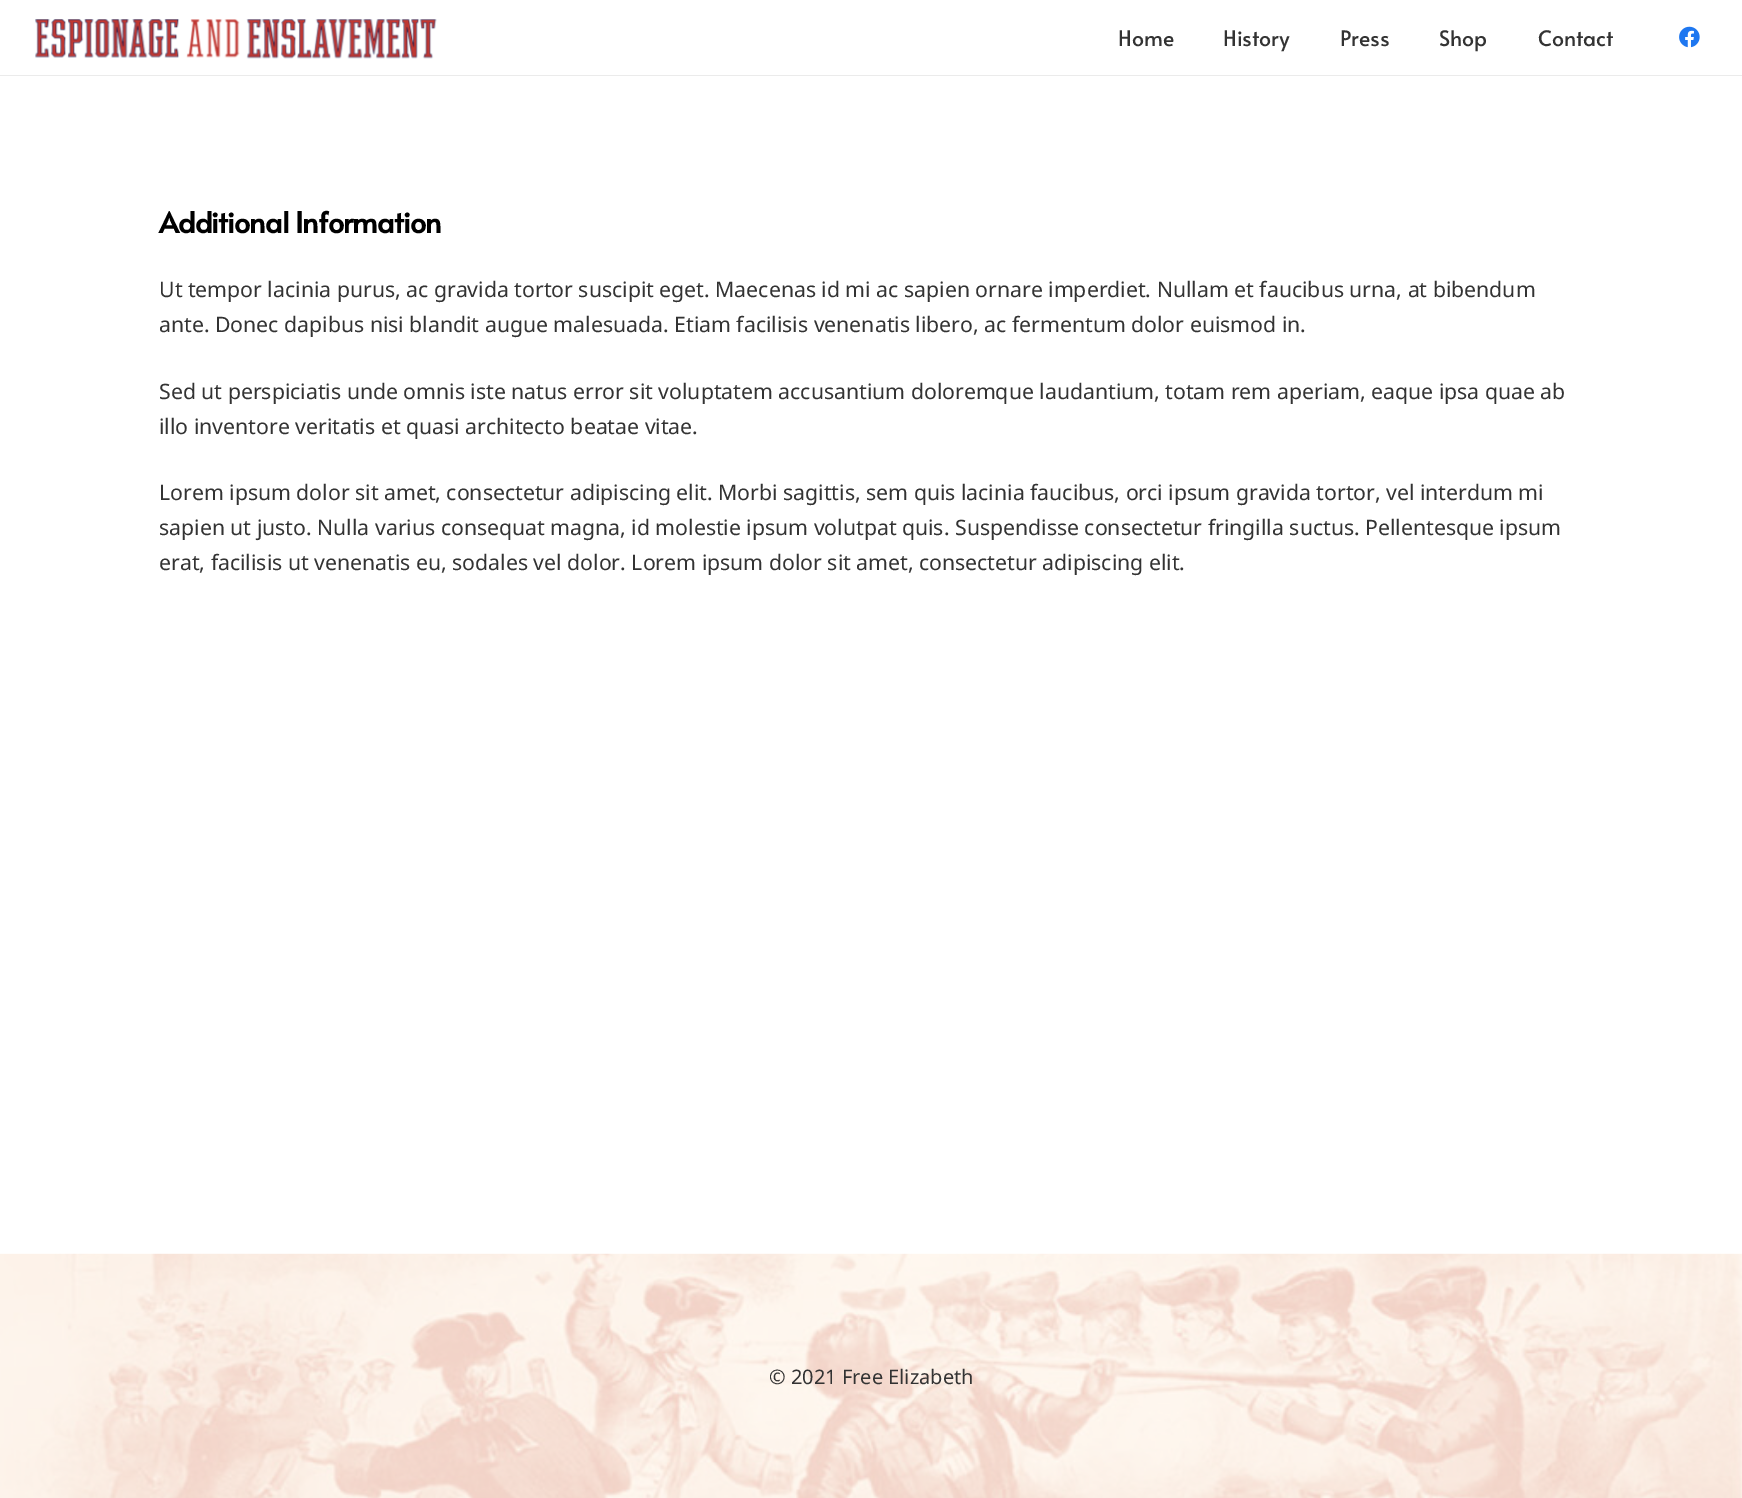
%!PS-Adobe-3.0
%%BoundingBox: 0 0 1742 1498
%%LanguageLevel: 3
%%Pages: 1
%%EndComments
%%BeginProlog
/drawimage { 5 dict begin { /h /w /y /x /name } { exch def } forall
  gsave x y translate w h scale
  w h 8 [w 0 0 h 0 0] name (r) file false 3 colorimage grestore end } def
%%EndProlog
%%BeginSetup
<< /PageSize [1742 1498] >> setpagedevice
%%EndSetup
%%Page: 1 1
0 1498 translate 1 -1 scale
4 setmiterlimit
1 setgray
0 0 1742 1498 rectfill
0.922 setgray
newpath 0 75 moveto 0 76 lineto 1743 76 lineto 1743 1 lineto 1742 1 lineto 1742 75 lineto closepath fill
(images/1.raw) 35 19 402 40 drawimage
(images/2.raw) 1679 26 21 22 drawimage
(images/3.raw) 0 1253 1742 245 drawimage
/Alata-Regular [21.25 0 0 -21.25 0 0] selectfont
0.2 setgray
1118 46 moveto (Home) show
1223 46 moveto (History) show
1340 46 moveto (Press) show
1439 46 moveto (Shop) show
1538 46 moveto (Contact) show
/Alata-Bold [28.75 0 0 -28.75 0 0] selectfont
0 setgray
159 233 moveto -0.9 0 (Additional Information) ashow
/NotoSans-Regular [21.25 0 0 -21.25 0 0] selectfont
0.2 setgray
159 297 moveto (Ut tempor lacinia purus, ac gravida tortor suscipit eget. Maecenas id mi ac sapien ornare imperdiet. Nullam et faucibus urna, at bibendum) show
159 332 moveto (ante. Donec dapibus nisi blandit augue malesuada. Etiam facilisis venenatis libero, ac fermentum dolor euismod in.) show
159 399 moveto (Sed ut perspiciatis unde omnis iste natus error sit voluptatem accusantium doloremque laudantium, totam rem aperiam, eaque ipsa quae ab) show
159 434 moveto (illo inventore veritatis et quasi architecto beatae vitae.) show
159 500 moveto (Lorem ipsum dolor sit amet, consectetur adipiscing elit. Morbi sagittis, sem quis lacinia faucibus, orci ipsum gravida tortor, vel interdum mi) show
159 535 moveto (sapien ut justo. Nulla varius consequat magna, id molestie ipsum volutpat quis. Suspendisse consectetur fringilla suctus. Pellentesque ipsum) show
159 570 moveto (erat, facilisis ut venenatis eu, sodales vel dolor. Lorem ipsum dolor sit amet, consectetur adipiscing elit.) show
/NotoSans-Regular [20 0 0 -20 0 0] selectfont
769 1384 moveto (© 2021 Free Elizabeth) show
showpage
%%EOF
